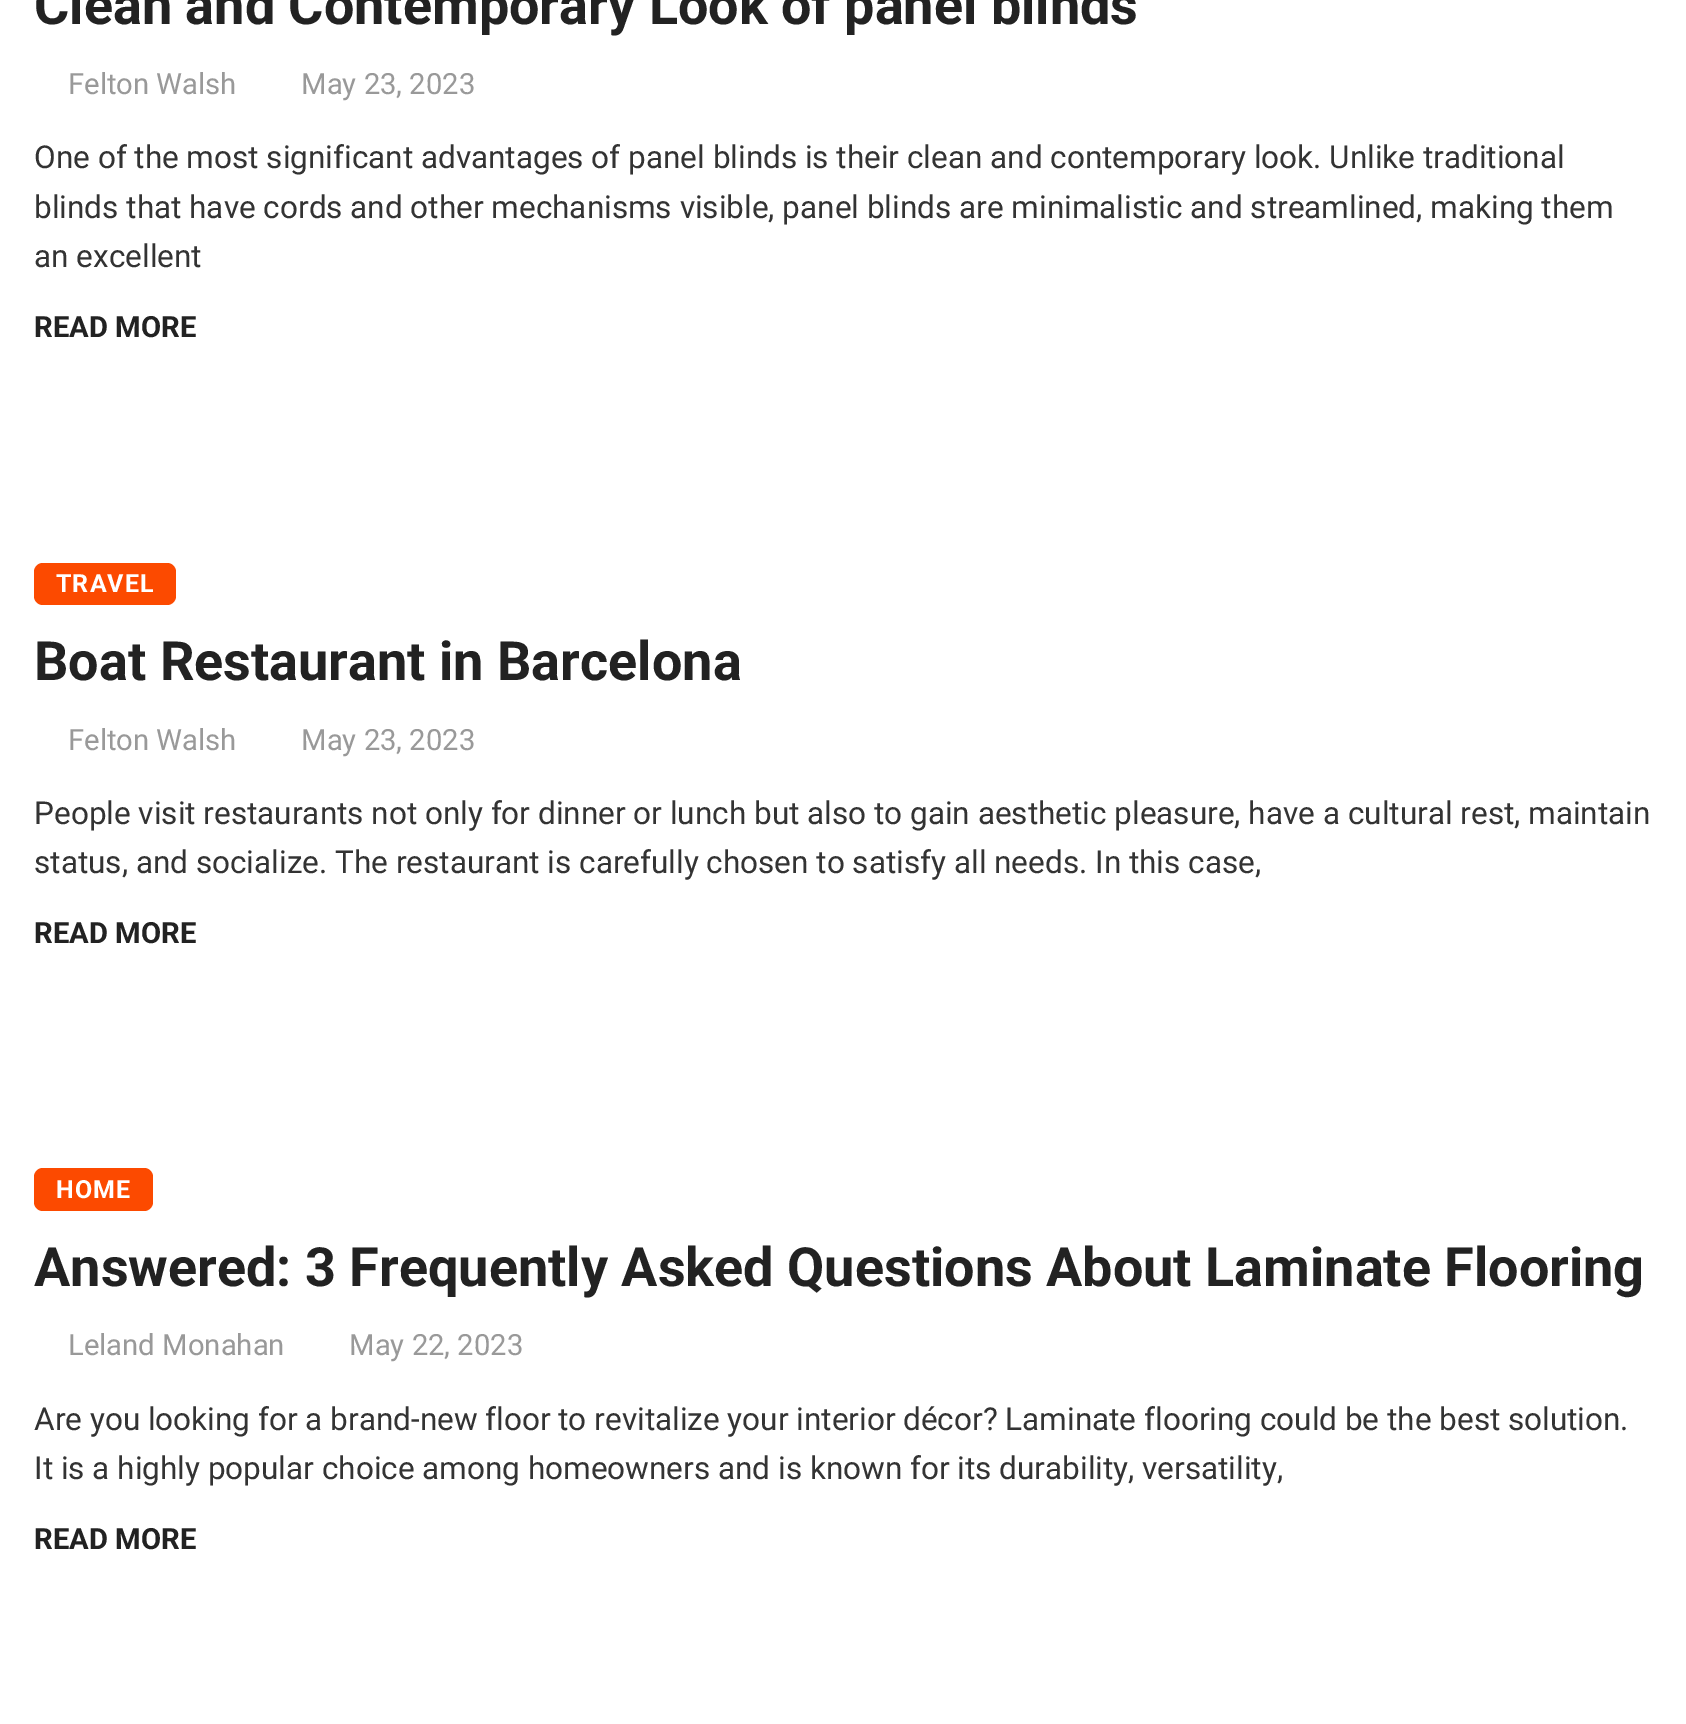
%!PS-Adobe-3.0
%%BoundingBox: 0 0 1686 1724
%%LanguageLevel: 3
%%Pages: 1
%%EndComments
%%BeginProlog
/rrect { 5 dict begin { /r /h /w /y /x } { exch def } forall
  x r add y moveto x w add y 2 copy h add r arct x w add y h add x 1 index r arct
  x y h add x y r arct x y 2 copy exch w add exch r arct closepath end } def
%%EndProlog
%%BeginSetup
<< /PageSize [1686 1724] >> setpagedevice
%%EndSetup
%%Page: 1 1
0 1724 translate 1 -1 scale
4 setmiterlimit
1 setgray
0 0 1686 1724 rectfill
0.988 0.29 0 setrgbcolor
34 563 142 42 9 rrect fill
34 1168 119 43 9 rrect fill
/Roboto-Bold [54 0 0 -54 0 0] selectfont
0.133 setgray
34 24 moveto (Clean and Contemporary Look of panel blinds) show
/Roboto-Regular [29.25 0 0 -29.25 0 0] selectfont
0.6 setgray
68 94 moveto (Felton Walsh) show
301 94 moveto (May 23, 2023) show
/Roboto-Regular [31.5 0 0 -31.5 0 0] selectfont
0.2 setgray
34 168 moveto (One of the most significant advantages of panel blinds is their clean and contemporary look. Unlike traditional) show
34 218 moveto (blinds that have cords and other mechanisms visible, panel blinds are minimalistic and streamlined, making them) show
34 267 moveto (an excellent) show
/Roboto-Bold [29.25 0 0 -29.25 0 0] selectfont
0.133 setgray
34 337 moveto (READ MORE) show
/Roboto-Bold [25 0 0 -25 0 0] selectfont
1 setgray
56 592 moveto 1 0 (TRAVEL) ashow
/Roboto-Bold [54 0 0 -54 0 0] selectfont
0.133 setgray
34 680 moveto (Boat Restaurant in Barcelona) show
/Roboto-Regular [29.25 0 0 -29.25 0 0] selectfont
0.6 setgray
68 750 moveto (Felton Walsh) show
301 750 moveto (May 23, 2023) show
/Roboto-Regular [31.5 0 0 -31.5 0 0] selectfont
0.2 setgray
34 824 moveto (People visit restaurants not only for dinner or lunch but also to gain aesthetic pleasure, have a cultural rest, maintain) show
34 873 moveto (status, and socialize. The restaurant is carefully chosen to satisfy all needs. In this case,) show
/Roboto-Bold [29.25 0 0 -29.25 0 0] selectfont
0.133 setgray
34 943 moveto (READ MORE) show
/Roboto-Bold [25 0 0 -25 0 0] selectfont
1 setgray
56 1198 moveto 1 0 (HOME) ashow
/Roboto-Bold [54 0 0 -54 0 0] selectfont
0.133 setgray
34 1286 moveto (Answered: 3 Frequently Asked Questions About Laminate Flooring) show
/Roboto-Regular [29.25 0 0 -29.25 0 0] selectfont
0.6 setgray
68 1355 moveto (Leland Monahan) show
349 1355 moveto (May 22, 2023) show
/Roboto-Regular [31.5 0 0 -31.5 0 0] selectfont
0.2 setgray
34 1430 moveto (Are you looking for a brand-new floor to revitalize your interior décor? Laminate flooring could be the best solution.) show
34 1479 moveto (It is a highly popular choice among homeowners and is known for its durability, versatility,) show
/Roboto-Bold [29.25 0 0 -29.25 0 0] selectfont
0.133 setgray
34 1549 moveto (READ MORE) show
showpage
%%EOF
